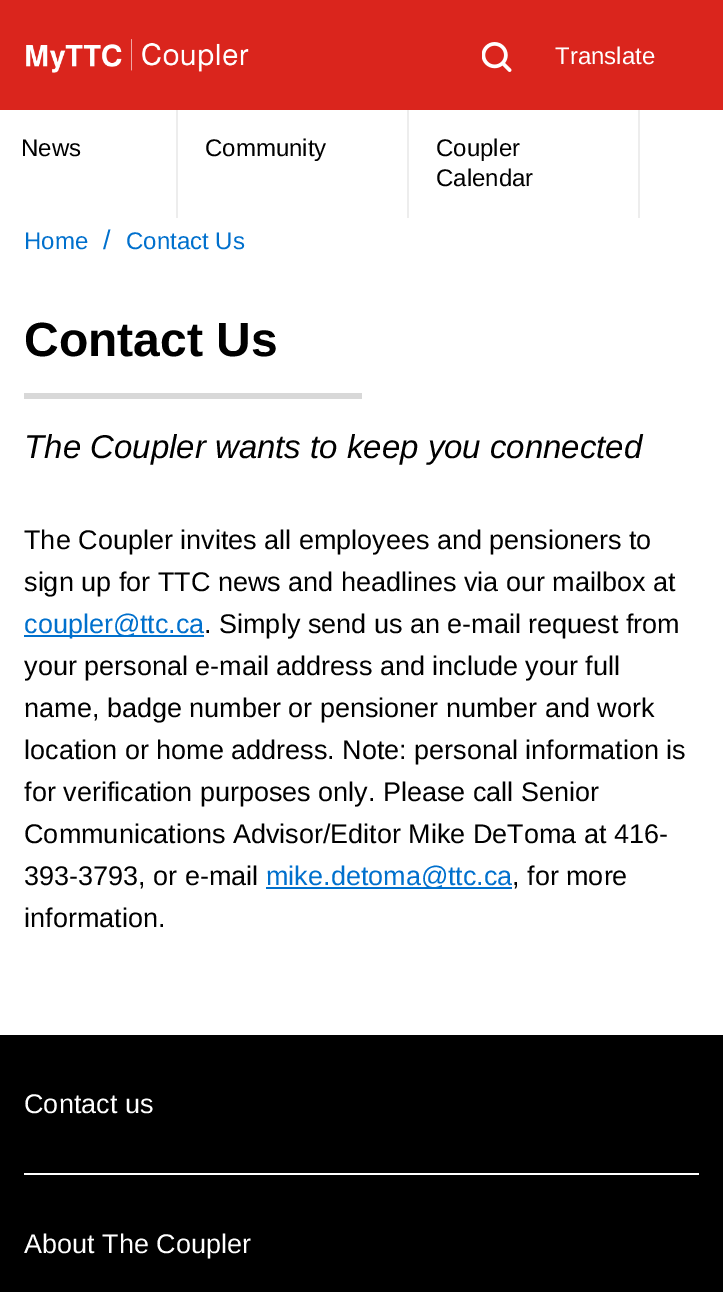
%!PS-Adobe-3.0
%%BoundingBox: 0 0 723 1292
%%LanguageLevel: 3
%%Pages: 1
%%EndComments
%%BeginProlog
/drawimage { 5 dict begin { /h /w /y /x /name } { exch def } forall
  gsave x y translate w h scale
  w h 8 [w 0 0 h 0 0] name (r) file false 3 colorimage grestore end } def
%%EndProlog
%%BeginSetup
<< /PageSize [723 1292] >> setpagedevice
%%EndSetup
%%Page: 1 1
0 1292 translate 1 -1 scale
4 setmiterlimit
1 setgray
0 0 723 1292 rectfill
0.855 0.145 0.114 setrgbcolor
0 0 723 110 rectfill
(images/1.raw) 26 39 223 34 drawimage
(images/2.raw) 482 42 30 30 drawimage
0.929 setgray
176 110 2 108 rectfill
407 110 2 108 rectfill
638 110 2 108 rectfill
0.847 setgray
24 393 338 6 rectfill
0 0.439 0.804 setrgbcolor
24 635 180 2 rectfill
266 887 246 2 rectfill
0 setgray
0 1035 723 257 rectfill
1 setgray
24 1173 675 2 rectfill
/LiberationSans-Regular [24 0 0 -24 0 0] selectfont
555 64 moveto (Translate) show
0 setgray
21 156 moveto (News) show
205 156 moveto (Community) show
436 156 moveto (Coupler) show
436 186 moveto (Calendar) show
0 0.439 0.804 setrgbcolor
24 249 moveto (Home) show
/LiberationSans-Regular [27 0 0 -27 0 0] selectfont
103 249 moveto (/) show
/LiberationSans-Regular [24 0 0 -24 0 0] selectfont
126 249 moveto (Contact Us) show
/LiberationSans-Bold [48 0 0 -48 0 0] selectfont
0 setgray
24 356 moveto (Contact Us) show
/LiberationSans-Italic [33 0 0 -33 0 0] selectfont
24 458 moveto (The Coupler wants to keep you connected) show
/LiberationSans-Regular [27 0 0 -27 0 0] selectfont
24 549 moveto (The Coupler invites all employees and pensioners to) show
24 591 moveto (sign up for TTC news and headlines via our mailbox at) show
0 0.439 0.804 setrgbcolor
24 633 moveto (coupler@ttc.ca) show
0 setgray
204 633 moveto (. Simply send us an e-mail request from) show
24 675 moveto (your personal e-mail address and include your full) show
24 717 moveto (name, badge number or pensioner number and work) show
24 759 moveto (location or home address. Note: personal information is) show
24 801 moveto (for verification purposes only. Please call Senior) show
24 843 moveto (Communications Advisor/Editor Mike DeToma at 416-) show
24 885 moveto (393-3793, or e-mail) show
0 0.439 0.804 setrgbcolor
266 885 moveto (mike.detoma@ttc.ca) show
0 setgray
512 885 moveto (, for more) show
24 927 moveto (information.) show
1 setgray
24 1113 moveto (Contact us) show
24 1253 moveto (About The Coupler) show
showpage
%%EOF
